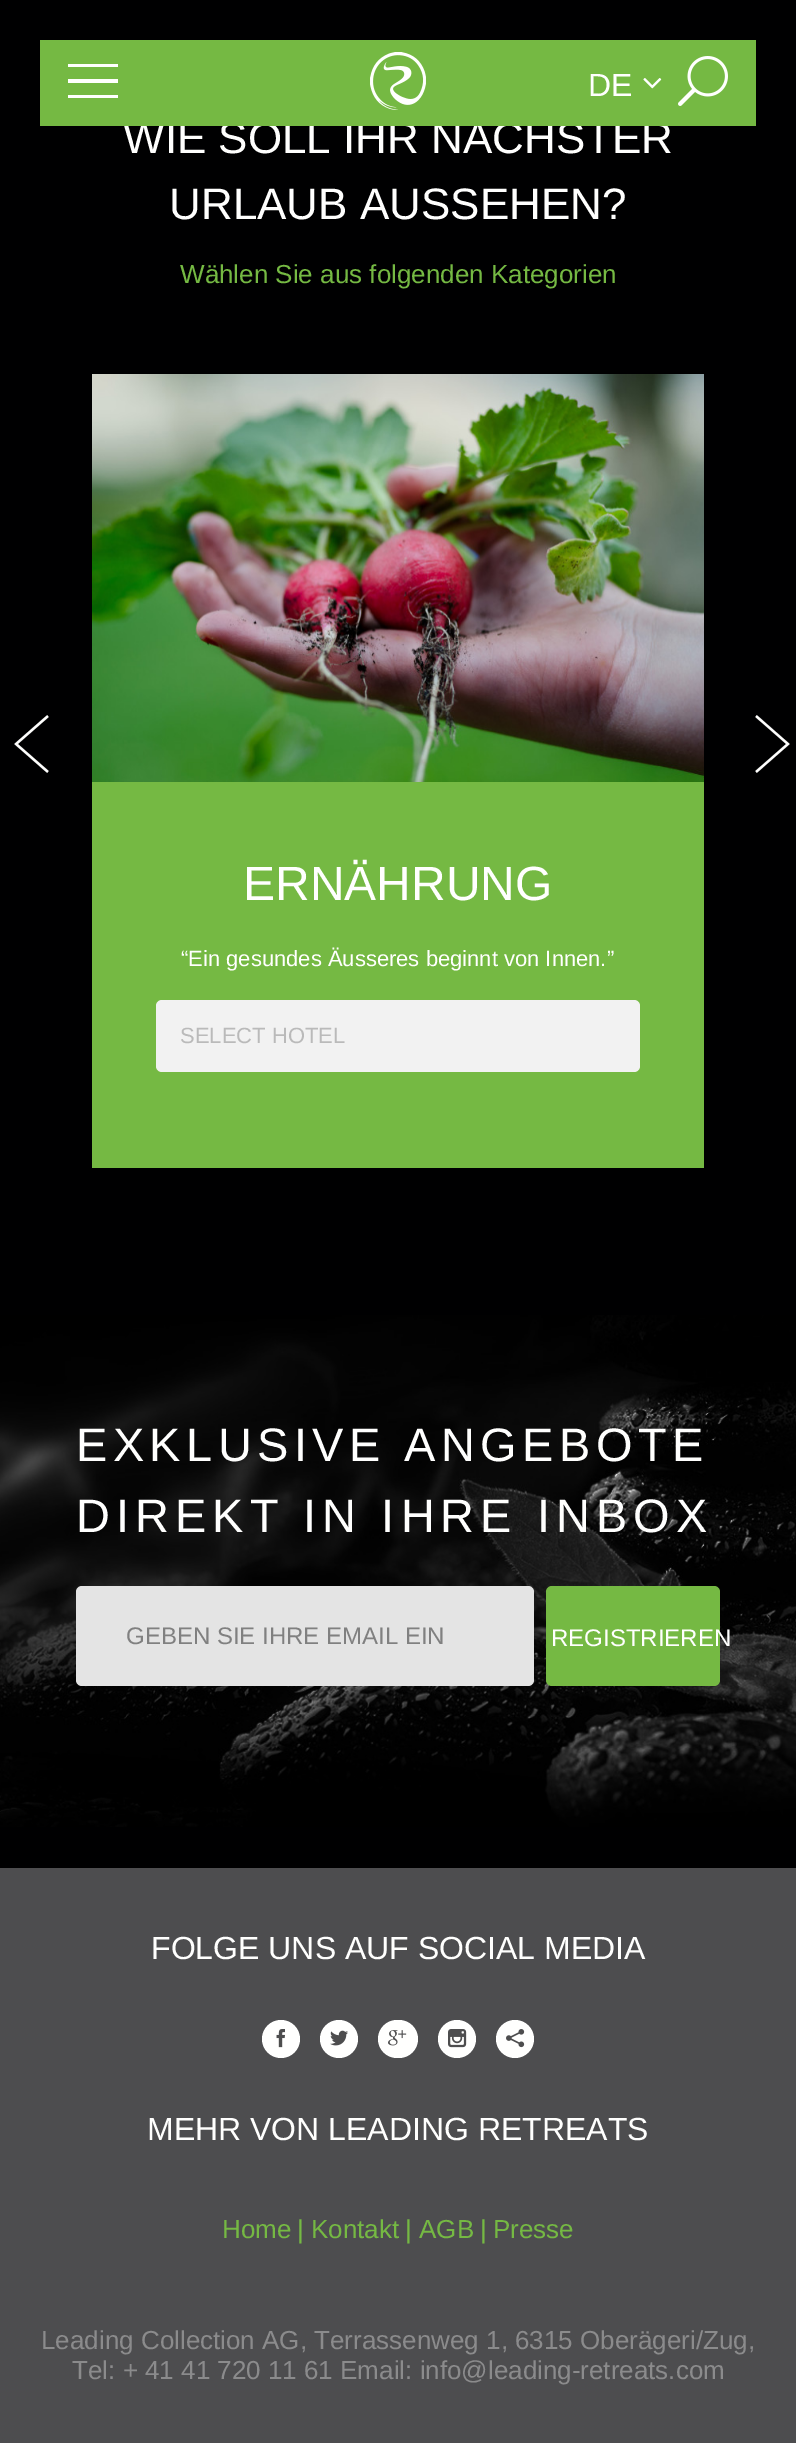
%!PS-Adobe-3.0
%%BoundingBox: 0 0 796 2443
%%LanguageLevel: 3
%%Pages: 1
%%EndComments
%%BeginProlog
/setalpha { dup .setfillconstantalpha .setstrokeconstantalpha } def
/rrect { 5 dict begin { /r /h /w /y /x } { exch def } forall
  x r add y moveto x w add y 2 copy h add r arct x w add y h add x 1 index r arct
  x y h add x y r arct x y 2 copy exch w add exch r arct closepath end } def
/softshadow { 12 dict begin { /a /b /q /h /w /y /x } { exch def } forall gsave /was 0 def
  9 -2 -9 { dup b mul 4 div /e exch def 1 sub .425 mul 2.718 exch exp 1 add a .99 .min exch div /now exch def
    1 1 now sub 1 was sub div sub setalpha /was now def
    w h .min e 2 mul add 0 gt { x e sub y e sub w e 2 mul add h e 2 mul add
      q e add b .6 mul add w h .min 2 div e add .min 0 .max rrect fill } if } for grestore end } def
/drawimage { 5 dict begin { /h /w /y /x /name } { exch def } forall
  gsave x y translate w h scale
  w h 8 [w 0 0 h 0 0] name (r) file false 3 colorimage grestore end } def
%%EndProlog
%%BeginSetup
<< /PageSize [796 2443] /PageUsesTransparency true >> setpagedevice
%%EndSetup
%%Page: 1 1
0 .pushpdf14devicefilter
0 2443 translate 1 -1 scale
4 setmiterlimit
0 0 0.004 setrgbcolor
0 0 796 2443 rectfill
0 setgray
36 36 724 94 0 16 0.3 softshadow
(images/4.raw) 14 715 35 58 drawimage
(images/5.raw) 755 715 35 58 drawimage
(images/6.raw) 92 374 612 408 drawimage
0.459 0.725 0.263 setrgbcolor
92 782 612 386 rectfill
0.949 setgray
156 1000 484 72 6 rrect fill
(images/7.raw) 0 1315 796 512 drawimage
0.894 setgray
76 1586 458 100 6 rrect fill
0.459 0.725 0.263 setrgbcolor
546 1586 174 100 6 rrect fill
0.302 0.302 0.31 setrgbcolor
0 1868 796 575 rectfill
1 1 0.996 setrgbcolor
newpath 281 2039 19 0 360 arc closepath fill
(images/8.raw) 276 2029 9 19 drawimage
newpath 339 2039 19 0 360 arc closepath fill
(images/9.raw) 330 2030 18 16 drawimage
378 2020 40 38 19 rrect fill
(images/10.raw) 388 2030 19 16 drawimage
newpath 457 2039 19 0 360 arc closepath fill
(images/11.raw) 448 2029 19 19 drawimage
newpath 515 2039 19 0 360 arc closepath fill
(images/12.raw) 506 2029 19 19 drawimage
/LiberationSans-Regular [44 0 0 -44 0 0] selectfont
123 153 moveto (WIE SOLL IHR NÄCHSTER) show
0.459 0.725 0.263 setrgbcolor
40 40 716 86 rectfill
(images/2.raw) 643 78 19 11 drawimage
/LiberationSans-Regular [32 0 0 -32 0 0] selectfont
1 1 0.996 setrgbcolor
588 96 moveto (DE) show
(images/3.raw) 678 56 50 50 drawimage
(images/1.raw) 370 52 56 58 drawimage
newpath 68 64 moveto 68 67 lineto 118 67 lineto 118 64 lineto closepath 68 83 moveto 118 83 lineto 118 79 lineto 68 79 lineto closepath 68 98 moveto 118 98 lineto 118 95 lineto 68 95 lineto closepath fill
/LiberationSans-Regular [44 0 0 -44 0 0] selectfont
169 219 moveto (URLAUB AUSSEHEN?) show
/LiberationSans-Regular [26 0 0 -26 0 0] selectfont
0.459 0.725 0.263 setrgbcolor
180 283 moveto (Wählen Sie aus folgenden Kategorien) show
/LiberationSans-Regular [48 0 0 -48 0 0] selectfont
1 1 0.996 setrgbcolor
243 900 moveto (ERNÄHRUNG) show
/LiberationSans-Regular [22 0 0 -22 0 0] selectfont
181 966 moveto (“Ein gesundes Äusseres beginnt von Innen.”) show
0.729 setgray
180 1043 moveto (SELECT HOTEL) show
/LiberationSans-Regular [47 0 0 -47 0 0] selectfont
1 1 0.996 setrgbcolor
76 1461 moveto 5.4 0 (EXKLUSIVE ANGEBOTE) ashow
76 1532 moveto 6 0 (DIREKT IN IHRE INBOX) ashow
/LiberationSans-Regular [24 0 0 -24 0 0] selectfont
0.502 setgray
126 1644 moveto (GEBEN SIE IHRE EMAIL EIN) show
1 1 0.996 setrgbcolor
551 1646 moveto (REGISTRIEREN) show
/LiberationSans-Regular [32 0 0 -32 0 0] selectfont
151 1959 moveto (FOLGE UNS AUF SOCIAL MEDIA) show
147 2140 moveto (MEHR VON LEADING RETREATS) show
/LiberationSans-Regular [26 0 0 -26 0 0] selectfont
0.459 0.725 0.263 setrgbcolor
222 2238 moveto (Home) show
297 2238 moveto (|) show
311 2238 moveto (Kontakt) show
405 2238 moveto (|) show
419 2238 moveto (AGB) show
480 2238 moveto (|) show
493 2238 moveto (Presse) show
0.545 0.545 0.549 setrgbcolor
41 2349 moveto (Leading Collection AG, Terrassenweg 1, 6315 Oberägeri/Zug,) show
72 2379 moveto (Tel: + 41 41 720 11 61 Email: info@leading-retreats.com) show
.poppdf14devicefilter showpage
%%EOF
